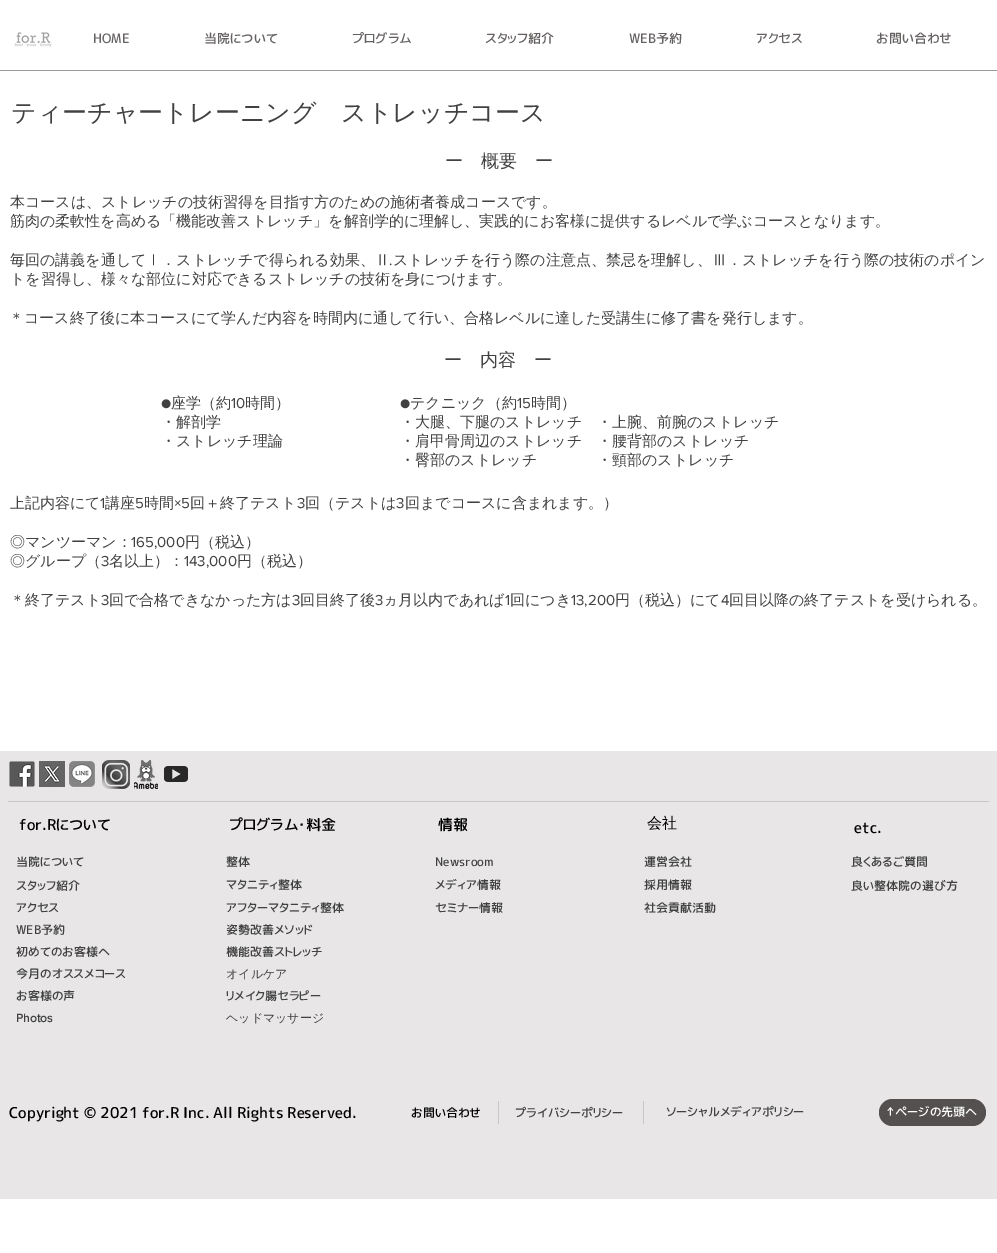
%!PS-Adobe-3.0
%%BoundingBox: 0 0 997 1253
%%LanguageLevel: 3
%%Pages: 1
%%EndComments
%%BeginProlog
/rrect { 5 dict begin { /r /h /w /y /x } { exch def } forall
  x r add y moveto x w add y 2 copy h add r arct x w add y h add x 1 index r arct
  x y h add x y r arct x y 2 copy exch w add exch r arct closepath end } def
/drawimage { 5 dict begin { /h /w /y /x /name } { exch def } forall
  gsave x y translate w h scale
  w h 8 [w 0 0 h 0 0] name (r) file false 3 colorimage grestore end } def
%%EndProlog
%%BeginSetup
<< /PageSize [997 1253] >> setpagedevice
%%EndSetup
%%Page: 1 1
0 1253 translate 1 -1 scale
4 setmiterlimit
1 setgray
0 0 997 1253 rectfill
(images/1.raw) 14 32 38 15 drawimage
0.6 0.6 0.592 setrgbcolor
0 70 997 1 rectfill
0.91 0.902 0.902 setrgbcolor
0 751 997 448 rectfill
(images/2.raw) 9 761 26 26 drawimage
(images/3.raw) 39 761 26 26 drawimage
(images/4.raw) 69 761 26 26 drawimage
(images/5.raw) 102 760 28 29 drawimage
(images/6.raw) 134 760 24 29 drawimage
(images/7.raw) 164 766 24 16 drawimage
0.78 setgray
8 801 981 1 rectfill
498 1101 1 23 rectfill
643 1101 1 23 rectfill
0.329 0.314 0.314 setrgbcolor
879 1099 107 27 13.5 rrect fill
/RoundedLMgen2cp-Medium [13 0 0 -13 0 0] selectfont
0.4 0.384 0.384 setrgbcolor
93 43 moveto (HOME) show
204 43 moveto (当院について) show
352 43 moveto (プログラム) show
485 43 moveto (スタッフ紹介) show
629 43 moveto (WEB予約) show
756 43 moveto (アクセス) show
876 43 moveto (お問い合わせ) show
/WenQuanYiZenHei-Medium [25 0 0 -25 0 0] selectfont
0.255 setgray
11 121 moveto (ティーチャートレーニング　ストレッチコース) show
/WenQuanYiZenHei-Medium [18 0 0 -18 0 0] selectfont
445 167 moveto (ー　概要　ー) show
/WenQuanYiZenHei-Medium [15 0 0 -15 0 0] selectfont
10 207 moveto (本コースは、ストレッチの技術習得を目指す方のための施術者養成コースです。) show
10 226 moveto (筋肉の柔軟性を高める「機能改善ストレッチ」を解剖学的に理解し、実践的にお客様に提供するレベルで学ぶコースとなります。) show
10 265 moveto (毎回の講義を通してⅠ．ストレッチで得られる効果、Ⅱ) show
/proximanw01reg-Regular [15 0 0 -15 0 0] selectfont
389 265 moveto (.) show
/WenQuanYiZenHei-Medium [15 0 0 -15 0 0] selectfont
393 265 moveto (ストレッチを行う際の注意点、禁忌を理解し、Ⅲ．ストレッチを行う際の技術のポイン) show
10 284 moveto (トを習得し、様々な部位に対応できるストレッチの技術を身につけます。) show
9 323 moveto (＊コース終了後に本コースにて学んだ内容を時間内に通して行い、合格レベルに達した受講生に修了書を発行します。) show
/WenQuanYiZenHei-Medium [18 0 0 -18 0 0] selectfont
444 366 moveto (ー　内容　ー) show
/proximanw01reg-Regular [15 0 0 -15 0 0] selectfont
161 408 moveto (●) show
/WenQuanYiZenHei-Medium [15 0 0 -15 0 0] selectfont
171 408 moveto (座学（約) show
/proximanw01reg-Regular [15 0 0 -15 0 0] selectfont
231 408 moveto (10) show
/WenQuanYiZenHei-Medium [15 0 0 -15 0 0] selectfont
245 408 moveto (時間）) show
161 427 moveto (・解剖学) show
161 446 moveto (・ストレッチ理論) show
/proximanw01reg-Regular [15 0 0 -15 0 0] selectfont
400 408 moveto (●) show
/WenQuanYiZenHei-Medium [15 0 0 -15 0 0] selectfont
410 408 moveto (テクニック（約) show
/proximanw01reg-Regular [15 0 0 -15 0 0] selectfont
517 408 moveto (15) show
/WenQuanYiZenHei-Medium [15 0 0 -15 0 0] selectfont
531 408 moveto (時間）) show
400 427 moveto (・大腿、下腿のストレッチ　・上腕、前腕のストレッチ) show
400 446 moveto (・肩甲骨周辺のストレッチ　・腰背部のストレッチ) show
400 465 moveto (・臀部のストレッチ　　　　・頸部のストレッチ) show
10 508 moveto (上記内容にて) show
/proximanw01reg-Regular [15 0 0 -15 0 0] selectfont
100 508 moveto (1) show
/WenQuanYiZenHei-Medium [15 0 0 -15 0 0] selectfont
105 508 moveto (講座) show
/proximanw01reg-Regular [15 0 0 -15 0 0] selectfont
135 508 moveto (5) show
/WenQuanYiZenHei-Medium [15 0 0 -15 0 0] selectfont
144 508 moveto (時間) show
/proximanw01reg-Regular [15 0 0 -15 0 0] selectfont
174 508 moveto (×5) show
/WenQuanYiZenHei-Medium [15 0 0 -15 0 0] selectfont
190 508 moveto (回＋終了テスト) show
/proximanw01reg-Regular [15 0 0 -15 0 0] selectfont
297 508 moveto (3) show
/WenQuanYiZenHei-Medium [15 0 0 -15 0 0] selectfont
305 508 moveto (回（テストは) show
/proximanw01reg-Regular [15 0 0 -15 0 0] selectfont
396 508 moveto (3) show
/WenQuanYiZenHei-Medium [15 0 0 -15 0 0] selectfont
405 508 moveto (回までコースに含まれます。）) show
10 547 moveto (◎マンツーマン：) show
/proximanw01reg-Regular [15 0 0 -15 0 0] selectfont
131 547 moveto (165,000) show
/WenQuanYiZenHei-Medium [15 0 0 -15 0 0] selectfont
185 547 moveto (円（税込）) show
10 566 moveto (◎グループ（) show
/proximanw01reg-Regular [15 0 0 -15 0 0] selectfont
101 566 moveto (3) show
/WenQuanYiZenHei-Medium [15 0 0 -15 0 0] selectfont
109 566 moveto (名以上）：) show
/proximanw01reg-Regular [15 0 0 -15 0 0] selectfont
184 566 moveto (143,000) show
/WenQuanYiZenHei-Medium [15 0 0 -15 0 0] selectfont
237 566 moveto (円（税込）) show
10 605 moveto (＊終了テスト) show
/proximanw01reg-Regular [15 0 0 -15 0 0] selectfont
101 605 moveto (3) show
/WenQuanYiZenHei-Medium [15 0 0 -15 0 0] selectfont
109 605 moveto (回で合格できなかった方は) show
/proximanw01reg-Regular [15 0 0 -15 0 0] selectfont
292 605 moveto (3) show
/WenQuanYiZenHei-Medium [15 0 0 -15 0 0] selectfont
300 605 moveto (回目終了後) show
/proximanw01reg-Regular [15 0 0 -15 0 0] selectfont
375 605 moveto (3) show
/WenQuanYiZenHei-Medium [15 0 0 -15 0 0] selectfont
383 605 moveto (ヵ月以内であれば) show
/proximanw01reg-Regular [15 0 0 -15 0 0] selectfont
505 605 moveto (1) show
/WenQuanYiZenHei-Medium [15 0 0 -15 0 0] selectfont
510 605 moveto (回につき) show
/proximanw01reg-Regular [15 0 0 -15 0 0] selectfont
571 605 moveto (13,200) show
/WenQuanYiZenHei-Medium [15 0 0 -15 0 0] selectfont
615 605 moveto (円（税込）にて) show
/proximanw01reg-Regular [15 0 0 -15 0 0] selectfont
721 605 moveto (4) show
/WenQuanYiZenHei-Medium [15 0 0 -15 0 0] selectfont
729 605 moveto (回目以降の終了テストを受けられる。) show
/RoundedLMgen2cp-Medium [15 0 0 -15 0 0] selectfont
0 setgray
19 830 moveto (for.Rについて) show
229 830 moveto (プログラム・料金) show
438 830 moveto (情報) show
/WenQuanYiZenHei-Medium [15 0 0 -15 0 0] selectfont
647 828 moveto (会社) show
/RoundedLMgen2cp-Medium [15 0 0 -15 0 0] selectfont
854 833 moveto (etc.) show
/RoundedLMgen2cp-Medium [12 0 0 -12 0 0] selectfont
0.255 setgray
16 866 moveto (当院について) show
226 866 moveto (整体) show
435 866 moveto (Newsroom) show
644 866 moveto (運営会社) show
851 866 moveto (良くあるご質問) show
16 890 moveto (スタッフ紹介) show
226 889 moveto (マタニティ整体) show
435 889 moveto (メディア情報) show
644 889 moveto (採用情報) show
851 890 moveto (良い整体院の選び方) show
16 912 moveto (アクセス) show
226 912 moveto (アフターマタニティ整体) show
435 912 moveto (セミナー情報) show
644 912 moveto (社会貢献活動) show
16 934 moveto (WEB予約) show
226 934 moveto (姿勢改善メソッド) show
16 956 moveto (初めてのお客様へ) show
226 956 moveto (機能改善ストレッチ) show
16 978 moveto (今月のオススメコース) show
/WenQuanYiZenHei-Medium [12 0 0 -12 0 0] selectfont
226 978 moveto (オイルケア) show
/RoundedLMgen2cp-Medium [12 0 0 -12 0 0] selectfont
16 1000 moveto (お客様の声) show
226 1000 moveto (リメイク腸セラピー) show
/proximanw01reg-Bold [12 0 0 -12 0 0] selectfont
16 1022 moveto (Photos) show
/WenQuanYiZenHei-Medium [12 0 0 -12 0 0] selectfont
226 1022 moveto (ヘッドマッサージ) show
/RoundedLMgen2cp-Medium [15 0 0 -15 0 0] selectfont
0 setgray
9 1118 moveto (Copyright © 2021 for.R Inc. All Rights Reserved.) show
/RoundedLMgen2cp-Medium [12 0 0 -12 0 0] selectfont
411 1117 moveto (お問い合わせ) show
0.255 setgray
515 1117 moveto (プライバシーポリシー) show
666 1116 moveto (ソーシャルメディアポリシー) show
1 setgray
886 1116 moveto (↑ページの先頭へ) show
showpage
%%EOF
